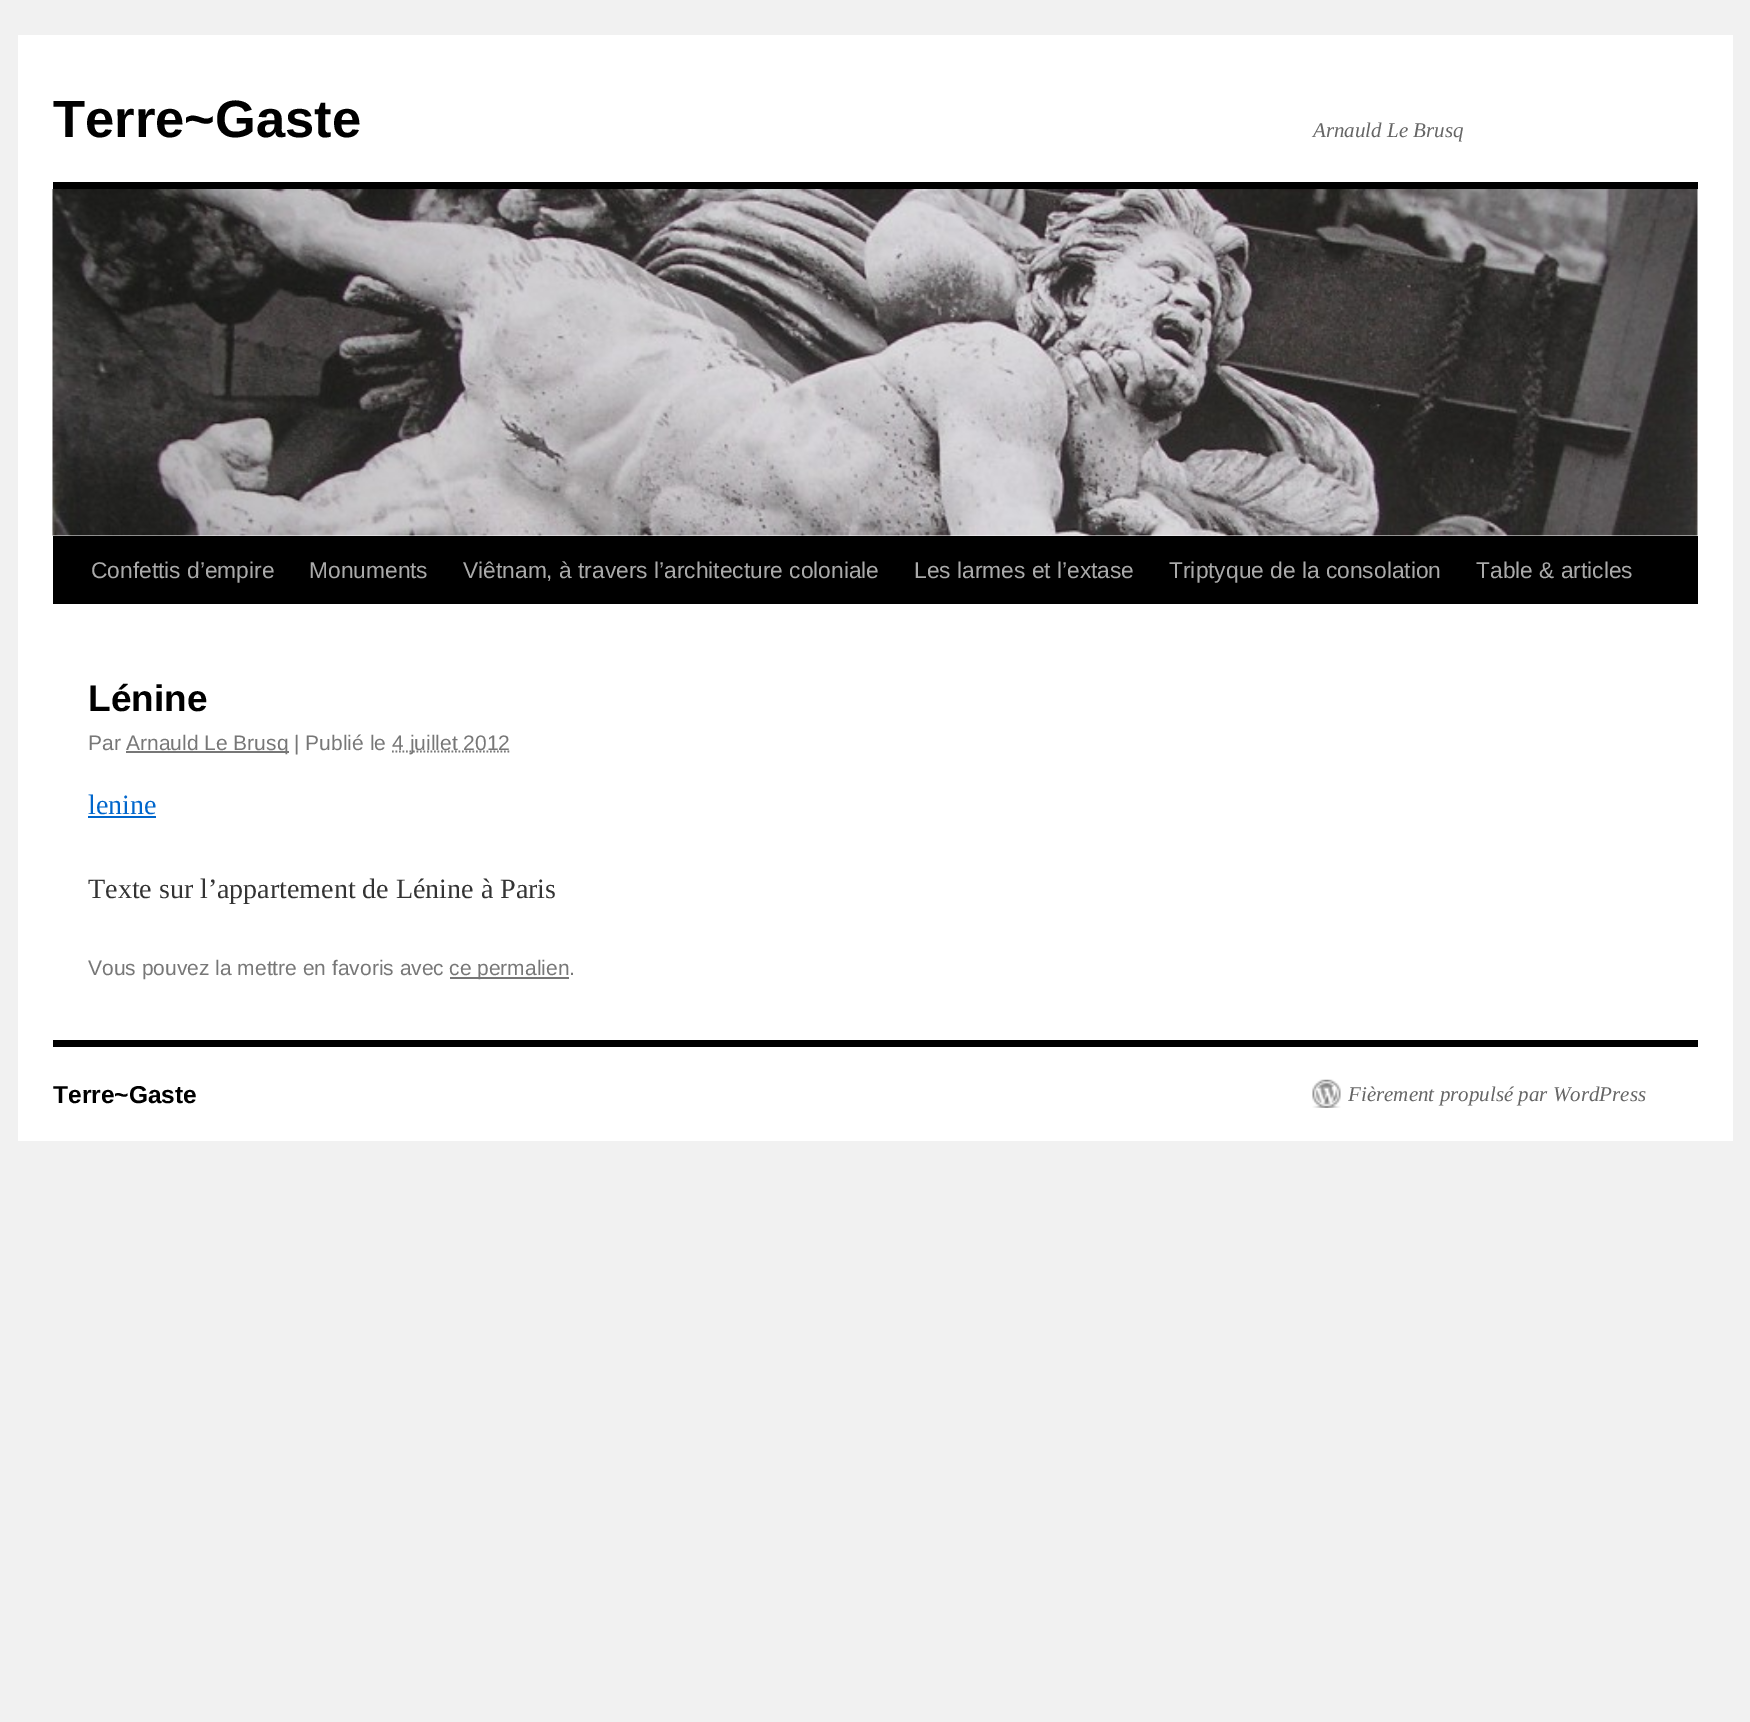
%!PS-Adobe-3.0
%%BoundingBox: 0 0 1750 1722
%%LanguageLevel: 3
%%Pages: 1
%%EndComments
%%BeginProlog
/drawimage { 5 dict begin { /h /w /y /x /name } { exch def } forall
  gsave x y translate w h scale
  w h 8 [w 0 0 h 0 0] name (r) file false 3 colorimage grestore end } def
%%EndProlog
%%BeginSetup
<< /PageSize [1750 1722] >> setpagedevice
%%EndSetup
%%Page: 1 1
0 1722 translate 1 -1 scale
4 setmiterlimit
0.945 setgray
0 0 1750 1722 rectfill
1 setgray
18 35 1715 1106 rectfill
0 setgray
53 182 1645 7 rectfill
53 536 1645 68 rectfill
(images/1.raw) 52 189 1646 347 drawimage
0.467 setgray
126 751 163 2 rectfill
1.8 setlinewidth
[1.75 1.75] 0 setdash
newpath 392 751.5 moveto 510 751.5 lineto stroke
0 0.4 0.8 setrgbcolor
88 816 68 2 rectfill
0.467 setgray
450 977 119 2 rectfill
0 setgray
53 1040 1645 7 rectfill
(images/2.raw) 1312 1079 29 29 drawimage
/LiberationSans-Bold [52.5 0 0 -52.5 0 0] selectfont
53 137 moveto (Terre~Gaste) show
/LiberationSerif-Italic [21 0 0 -21 0 0] selectfont
0.4 setgray
1313 137 moveto (Arnauld Le Brusq) show
/LiberationSans-Regular [22.75 0 0 -22.75 0 0] selectfont
0.667 setgray
91 578 moveto (Confettis d’empire) show
309 578 moveto (Monuments) show
463 578 moveto (Viêtnam, à travers l’architecture coloniale) show
914 578 moveto (Les larmes et l’extase) show
1169 578 moveto (Triptyque de la consolation) show
1476 578 moveto (Table & articles) show
/LiberationSans-Bold [37 0 0 -37 0 0] selectfont
0 setgray
88 711 moveto (Lénine) show
/LiberationSans-Regular [21 0 0 -21 0 0] selectfont
0.467 setgray
88 750 moveto (Par) show
126 750 moveto (Arnauld Le Brusq | Publié le) show
392 750 moveto (4 juillet 2012) show
/LiberationSerif-Regular [28 0 0 -28 0 0] selectfont
0 0.4 0.8 setrgbcolor
88 814 moveto (lenine) show
0.2 setgray
88 898 moveto (Texte sur l’appartement de Lénine à Paris) show
/LiberationSans-Regular [21 0 0 -21 0 0] selectfont
0.467 setgray
88 975 moveto (Vous pouvez la mettre en favoris avec) show
449 975 moveto (ce permalien.) show
gsave
53 1047 1645 94 rectclip
/LiberationSans-Bold [24.5 0 0 -24.5 0 0] selectfont
0 setgray
53 1103 moveto (Terre~Gaste) show
grestore
/LiberationSerif-Italic [21 0 0 -21 0 0] selectfont
0.4 setgray
1348 1101 moveto (Fièrement propulsé par WordPress) show
showpage
%%EOF
